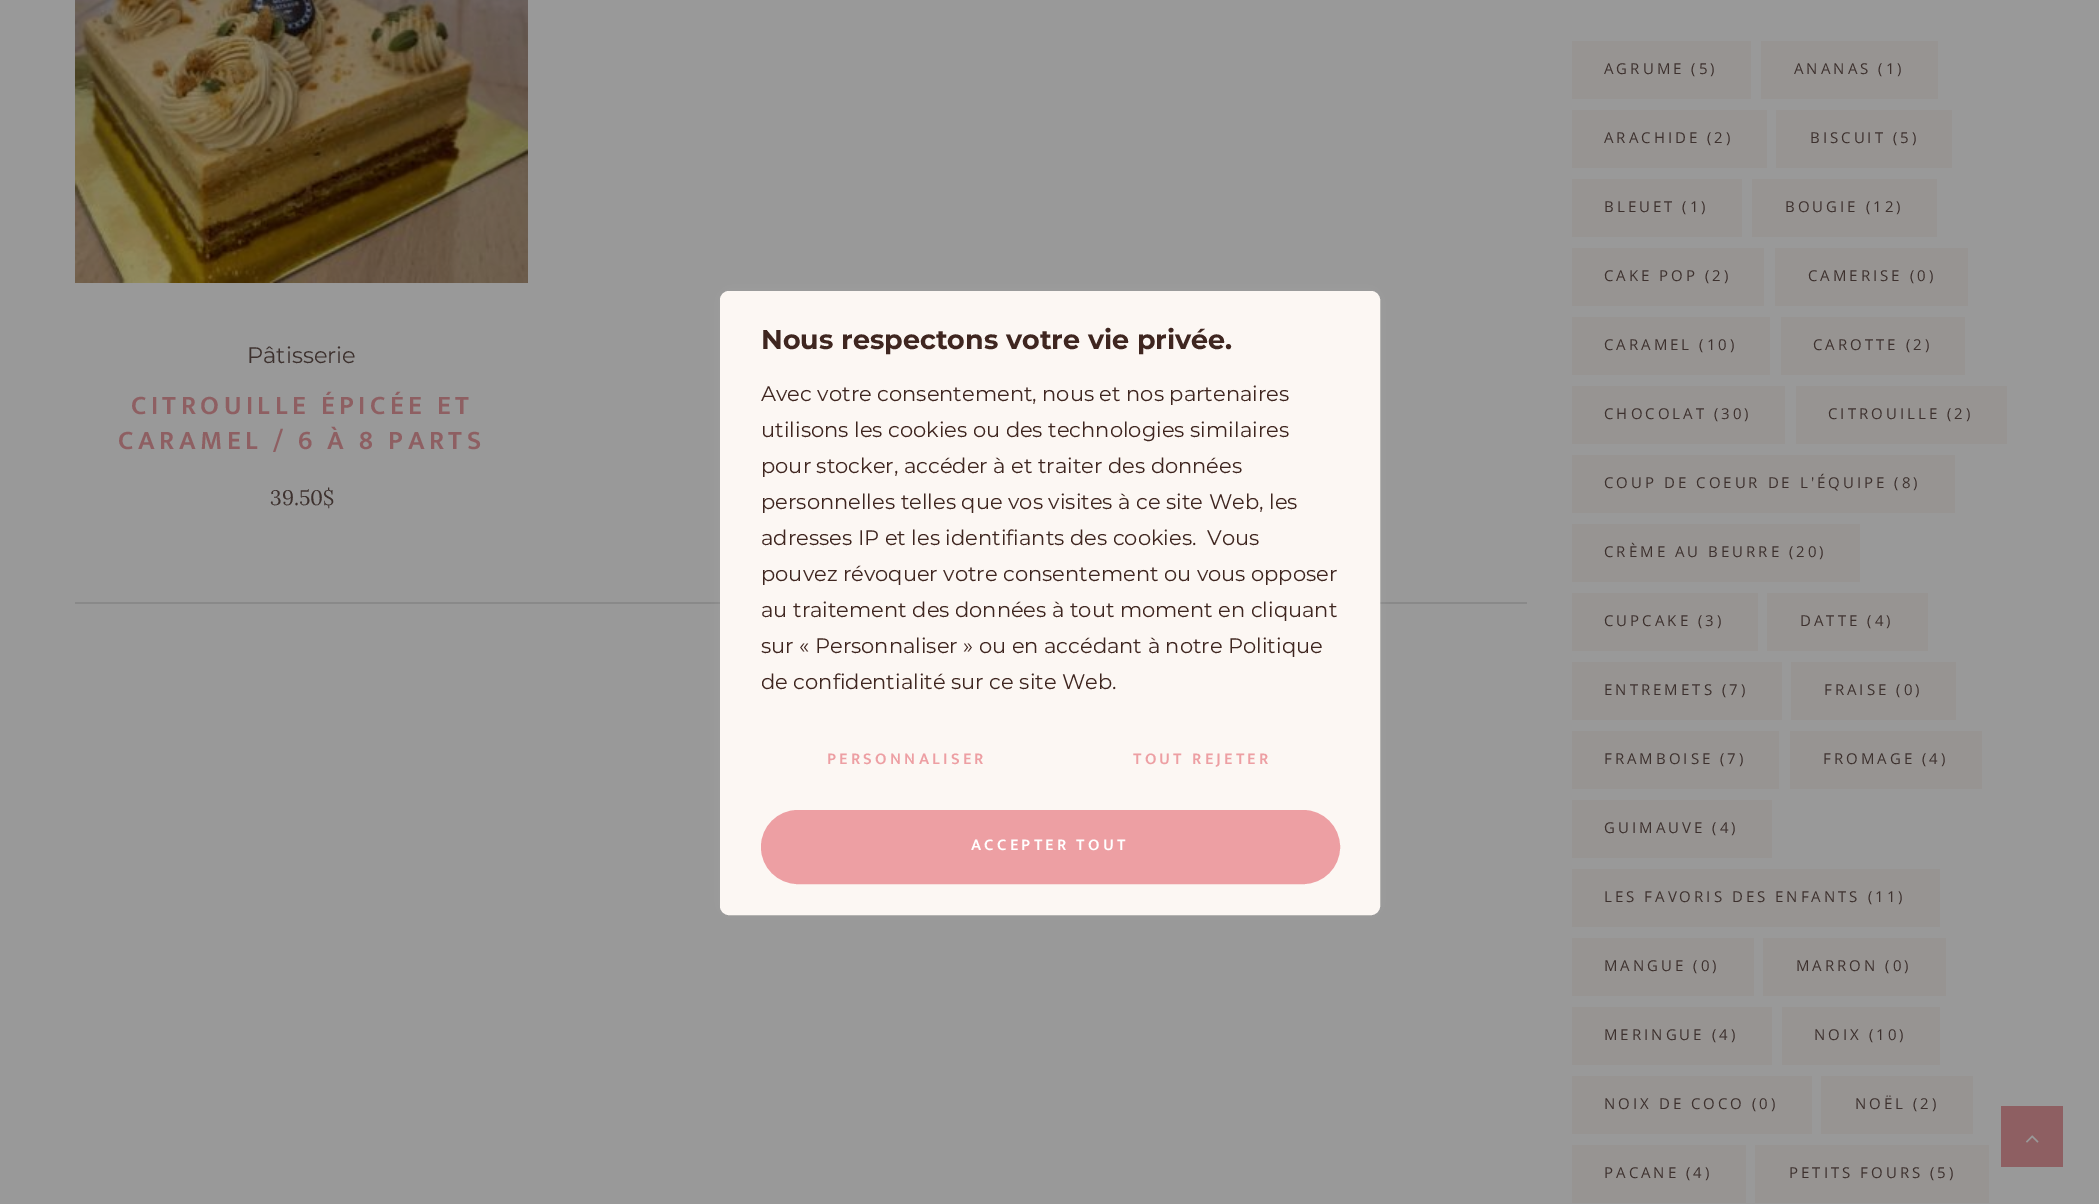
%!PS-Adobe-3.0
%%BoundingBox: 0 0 2099 1204
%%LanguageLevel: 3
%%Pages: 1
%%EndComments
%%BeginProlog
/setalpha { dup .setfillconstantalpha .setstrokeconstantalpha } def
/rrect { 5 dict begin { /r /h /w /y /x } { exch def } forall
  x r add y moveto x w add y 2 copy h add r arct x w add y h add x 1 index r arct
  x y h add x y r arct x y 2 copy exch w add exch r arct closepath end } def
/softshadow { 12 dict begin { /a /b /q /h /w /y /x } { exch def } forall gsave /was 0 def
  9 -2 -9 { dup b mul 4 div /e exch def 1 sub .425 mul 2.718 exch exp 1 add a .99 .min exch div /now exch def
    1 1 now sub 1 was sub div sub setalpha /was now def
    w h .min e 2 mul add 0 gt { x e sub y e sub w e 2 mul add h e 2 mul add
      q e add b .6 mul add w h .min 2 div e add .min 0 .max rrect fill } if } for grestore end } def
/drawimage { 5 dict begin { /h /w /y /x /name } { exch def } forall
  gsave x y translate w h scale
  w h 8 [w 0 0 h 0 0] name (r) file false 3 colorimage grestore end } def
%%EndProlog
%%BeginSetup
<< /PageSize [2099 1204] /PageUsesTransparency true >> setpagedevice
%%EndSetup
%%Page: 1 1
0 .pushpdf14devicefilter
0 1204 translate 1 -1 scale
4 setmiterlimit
0.6 setgray
0 0 2099 1204 rectfill
(images/1.raw) 75 0 453 283 drawimage
0.537 setgray
75 602 1452 2 rectfill
0.592 0.58 0.573 setrgbcolor
1572 41 179 58 rectfill
1761 41 177 58 rectfill
1572 110 195 58 rectfill
1776 110 176 58 rectfill
1572 179 170 58 rectfill
1752 179 185 58 rectfill
1572 248 192 58 rectfill
1775 248 193 58 rectfill
1572 317 198 58 rectfill
1781 317 184 58 rectfill
1572 386 213 58 rectfill
1796 386 211 58 rectfill
1572 455 383 58 rectfill
1572 524 288 58 rectfill
1572 593 186 58 rectfill
1767 593 161 58 rectfill
1572 662 210 58 rectfill
1791 662 165 58 rectfill
1572 731 207 58 rectfill
1790 731 192 58 rectfill
1572 800 200 58 rectfill
1572 869 368 58 rectfill
1572 938 182 58 rectfill
1763 938 183 58 rectfill
1572 1007 200 58 rectfill
1782 1007 158 58 rectfill
1572 1076 240 58 rectfill
1821 1076 152 58 rectfill
1572 1145 174 58 rectfill
1755 1145 234 58 rectfill
0.557 0.373 0.384 setrgbcolor
2001 1106 62 61 rectfill
(images/2.raw) 2026 1135 13 8 drawimage
0.675 0.671 0.671 setrgbcolor
720 290 660 624 9 7.5 0.3 softshadow
0.988 0.969 0.953 setrgbcolor
721 292 658 622 8 rrect gsave fill grestore
2 setlinewidth
stroke
0.929 0.624 0.639 setrgbcolor
762.5 811.5 576 71 35.5 rrect gsave fill grestore
3 setlinewidth
stroke
/Montserrat-Regular [22.5 0 0 -22.5 0 0] selectfont
0.239 0.192 0.18 setrgbcolor
247 363 moveto (Pâtisserie) show
/EkMukta-SemiBold [27 0 0 -27 0 0] selectfont
0.557 0.373 0.384 setrgbcolor
131 414 moveto 4.5 0 (CITROUILLE ÉPICÉE ET) ashow
118 449 moveto 4.5 0 (CARAMEL / 6 À 8 PARTS) ashow
/Lora-Regular [21 0 0 -21 0 0] selectfont
0.239 0.192 0.18 setrgbcolor
270 505 moveto (39.50$) show
/OpenSans-Regular [15 0 0 -15 0 0] selectfont
1604 74 moveto 3 0 (AGRUME \(5\)) ashow
1794 74 moveto 3 0 (ANANAS \(1\)) ashow
1604 143 moveto 3 0 (ARACHIDE \(2\)) ashow
1810 143 moveto 3 0 (BISCUIT \(5\)) ashow
1604 212 moveto 3 0 (BLEUET \(1\)) ashow
1785 212 moveto 3 0 (BOUGIE \(12\)) ashow
1604 281 moveto 3 0 (CAKE POP \(2\)) ashow
1808 281 moveto 3 0 (CAMERISE \(0\)) ashow
1604 350 moveto 3 0 (CARAMEL \(10\)) ashow
1813 350 moveto 3 0 (CAROTTE \(2\)) ashow
1604 419 moveto 3 0 (CHOCOLAT \(30\)) ashow
1828 419 moveto 3 0 (CITROUILLE \(2\)) ashow
1604 488 moveto 3 0 (COUP DE COEUR DE L'ÉQUIPE \(8\)) ashow
1604 557 moveto 3 0 (CRÈME AU BEURRE \(20\)) ashow
1604 626 moveto 3 0 (CUPCAKE \(3\)) ashow
1800 626 moveto 3 0 (DATTE \(4\)) ashow
1604 695 moveto 3 0 (ENTREMETS \(7\)) ashow
1824 695 moveto 3 0 (FRAISE \(0\)) ashow
1604 764 moveto 3 0 (FRAMBOISE \(7\)) ashow
1823 764 moveto 3 0 (FROMAGE \(4\)) ashow
1604 833 moveto 3 0 (GUIMAUVE \(4\)) ashow
1604 902 moveto 3 0 (LES FAVORIS DES ENFANTS \(11\)) ashow
1604 971 moveto 3 0 (MANGUE \(0\)) ashow
1796 971 moveto 3 0 (MARRON \(0\)) ashow
1604 1040 moveto 3 0 (MERINGUE \(4\)) ashow
1814 1040 moveto 3 0 (NOIX \(10\)) ashow
1604 1109 moveto 3 0 (NOIX DE COCO \(0\)) ashow
1855 1109 moveto 3 0 (NOËL \(2\)) ashow
1604 1178 moveto 3 0 (PACANE \(4\)) ashow
1789 1178 moveto 3 0 (PETITS FOURS \(5\)) ashow
/Montserrat-Bold [27 0 0 -27 0 0] selectfont
0.247 0.149 0.125 setrgbcolor
761 349 moveto (Nous respectons votre vie privée.) show
/Montserrat-Regular [21 0 0 -21 0 0] selectfont
761 401 moveto (Avec votre consentement, nous et nos partenaires) show
761 437 moveto (utilisons les cookies ou des technologies similaires) show
761 473 moveto (pour stocker, accéder à et traiter des données) show
761 509 moveto (personnelles telles que vos visites à ce site Web, les) show
761 545 moveto (adresses IP et les identifiants des cookies.  Vous) show
761 581 moveto (pouvez révoquer votre consentement ou vous opposer) show
761 617 moveto (au traitement des données à tout moment en cliquant) show
761 653 moveto (sur « Personnaliser » ou en accédant à notre Politique) show
761 689 moveto (de confidentialité sur ce site Web.) show
/EkMukta-SemiBold [16.5 0 0 -16.5 0 0] selectfont
0.929 0.624 0.639 setrgbcolor
827 764 moveto 3.25 0 (PERSONNALISER) ashow
1133 764 moveto 3.25 0 (TOUT REJETER) ashow
1 setgray
971 850 moveto 3.25 0 (ACCEPTER TOUT) ashow
.poppdf14devicefilter showpage
%%EOF
